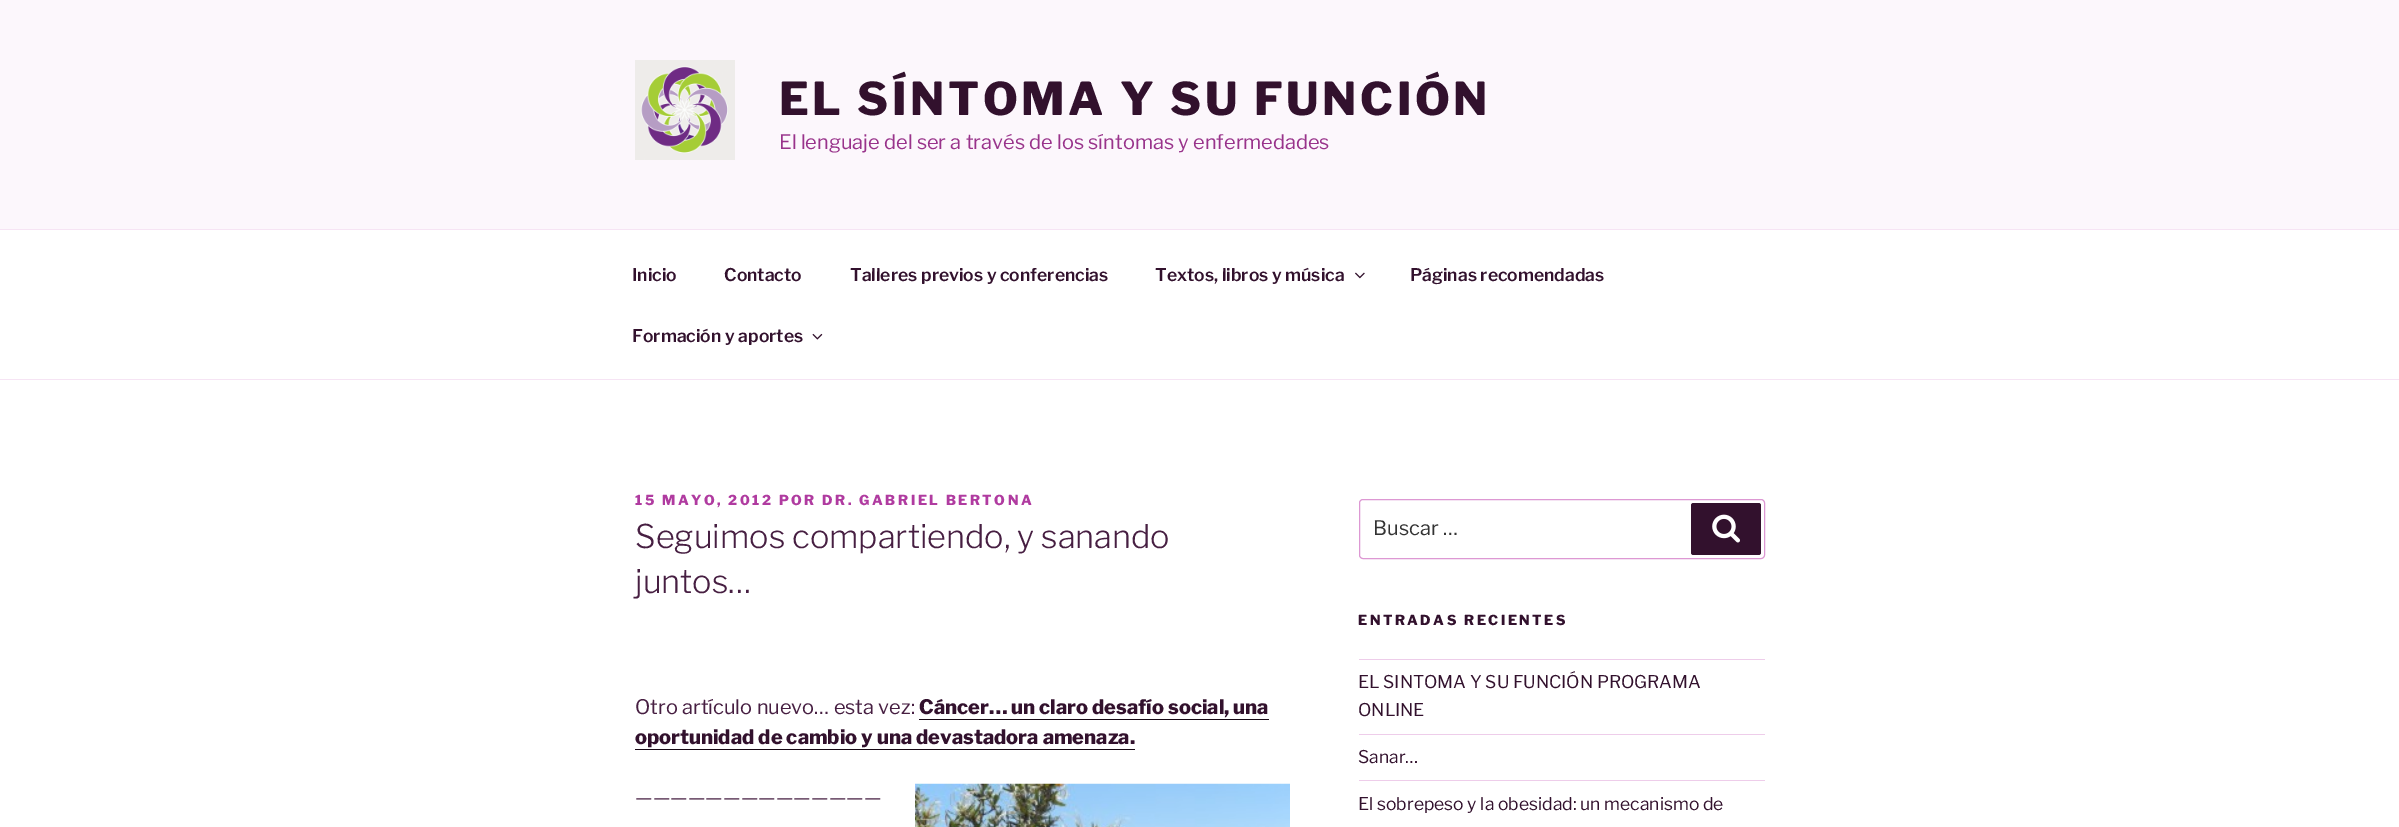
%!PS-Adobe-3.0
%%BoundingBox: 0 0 2399 827
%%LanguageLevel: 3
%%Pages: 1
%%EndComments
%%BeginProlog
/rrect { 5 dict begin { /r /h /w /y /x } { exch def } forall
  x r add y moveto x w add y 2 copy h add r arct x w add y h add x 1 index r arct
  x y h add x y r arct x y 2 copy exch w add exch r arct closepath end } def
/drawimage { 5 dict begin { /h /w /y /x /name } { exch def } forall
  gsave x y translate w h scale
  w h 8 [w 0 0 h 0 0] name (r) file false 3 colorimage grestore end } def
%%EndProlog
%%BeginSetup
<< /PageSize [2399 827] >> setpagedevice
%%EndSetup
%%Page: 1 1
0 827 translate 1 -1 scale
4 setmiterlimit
1 setgray
0 0 2399 827 rectfill
0.988 0.969 0.988 setrgbcolor
0 0 2399 229 rectfill
(images/1.raw) 635 60 100 100 drawimage
0.965 0.894 0.957 setrgbcolor
0 229 2399 1 rectfill
0 379 2399 1 rectfill
(images/2.raw) 1355 272 10 7 drawimage
(images/3.raw) 812 333 11 7 drawimage
0.09 0.031 0.082 setrgbcolor
919 719 350 1 rectfill
635 749 500 1 rectfill
(images/4.raw) 915 783 375 44 drawimage
0.867 0.596 0.827 setrgbcolor
1359.5 499.5 405 59 3.5 rrect stroke
0.196 0.067 0.176 setrgbcolor
1691 503 70 52 2.5 rrect fill
(images/5.raw) 1712 514 28 29 drawimage
0.933 0.804 0.918 setrgbcolor
1359 659 406 1 rectfill
1359 734 406 1 rectfill
1359 780 406 1 rectfill
/LibreFranklin-Thin [45 0 0 -45 0 0] selectfont
0.196 0.067 0.176 setrgbcolor
779 115 moveto 3.6 0 (EL SÍNTOMA Y SU FUNCIÓN) ashow
/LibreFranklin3-Thin [20 0 0 -20 0 0] selectfont
0.6 0.2 0.545 setrgbcolor
779 149 moveto (El lenguaje del ser a través de los síntomas y enfermedades) show
/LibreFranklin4-Thin [17.5 0 0 -17.5 0 0] selectfont
0.196 0.067 0.176 setrgbcolor
632 281 moveto (Inicio) show
724 281 moveto (Contacto) show
850 281 moveto (Talleres previos y conferencias) show
1155 281 moveto (Textos, libros y música) show
1410 281 moveto (Páginas recomendadas) show
632 342 moveto (Formación y aportes) show
/LibreFranklin-Thin [13.75 0 0 -13.75 0 0] selectfont
0.69 0.231 0.627 setrgbcolor
635 505 moveto 2.5 0 (15 MAYO, 2012 POR DR. GABRIEL BERTONA) ashow
/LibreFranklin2-Thin [32.5 0 0 -32.5 0 0] selectfont
0.278 0.122 0.259 setrgbcolor
635 548 moveto (Seguimos compartiendo, y sanando) show
635 593 moveto (juntos…) show
/LibreFranklin3-Thin [20 0 0 -20 0 0] selectfont
635 714 moveto (Otro artículo nuevo… esta vez:) show
/LibreFranklin-Thin [20 0 0 -20 0 0] selectfont
0.196 0.067 0.176 setrgbcolor
919 714 moveto (Cáncer… un claro desafío social, una) show
635 744 moveto (oportunidad de cambio y una devastadora amenaza.) show
/LibreFranklin3-Thin [20 0 0 -20 0 0] selectfont
0.278 0.122 0.259 setrgbcolor
635 804 moveto (——————————————) show
0.2 setgray
1373 535 moveto (Buscar …) show
/LibreFranklin-Thin [13.75 0 0 -13.75 0 0] selectfont
0.196 0.067 0.176 setrgbcolor
1358 625 moveto 2.5 0 (ENTRADAS RECIENTES) ashow
/LibreFranklin3-Thin [17.5 0 0 -17.5 0 0] selectfont
1358 688 moveto (EL SINTOMA Y SU FUNCIÓN PROGRAMA) show
1358 716 moveto (ONLINE) show
1358 763 moveto (Sanar…) show
1358 810 moveto (El sobrepeso y la obesidad: un mecanismo de) show
showpage
%%EOF
